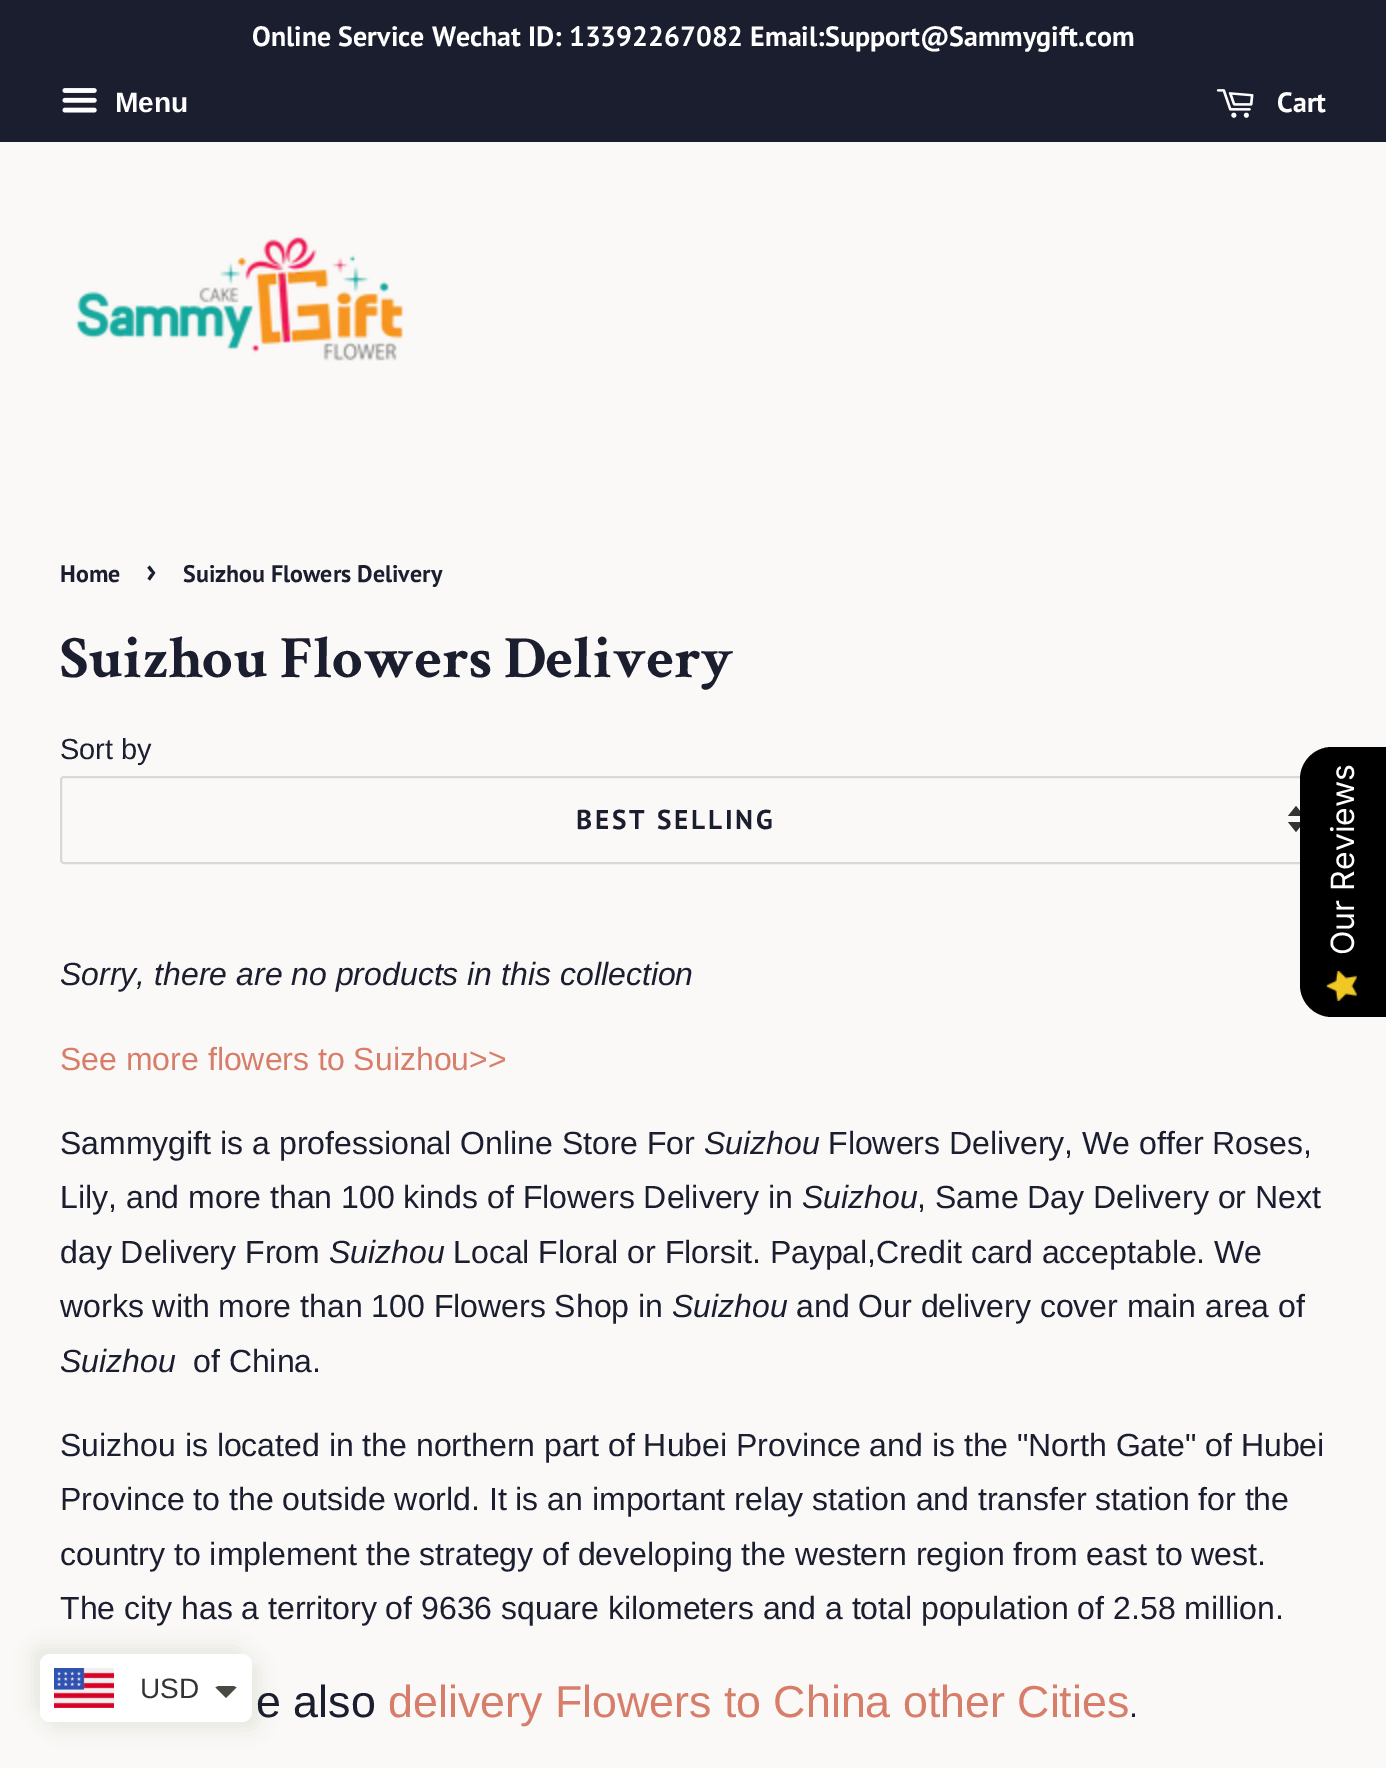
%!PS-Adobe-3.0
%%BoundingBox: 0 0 1386 1768
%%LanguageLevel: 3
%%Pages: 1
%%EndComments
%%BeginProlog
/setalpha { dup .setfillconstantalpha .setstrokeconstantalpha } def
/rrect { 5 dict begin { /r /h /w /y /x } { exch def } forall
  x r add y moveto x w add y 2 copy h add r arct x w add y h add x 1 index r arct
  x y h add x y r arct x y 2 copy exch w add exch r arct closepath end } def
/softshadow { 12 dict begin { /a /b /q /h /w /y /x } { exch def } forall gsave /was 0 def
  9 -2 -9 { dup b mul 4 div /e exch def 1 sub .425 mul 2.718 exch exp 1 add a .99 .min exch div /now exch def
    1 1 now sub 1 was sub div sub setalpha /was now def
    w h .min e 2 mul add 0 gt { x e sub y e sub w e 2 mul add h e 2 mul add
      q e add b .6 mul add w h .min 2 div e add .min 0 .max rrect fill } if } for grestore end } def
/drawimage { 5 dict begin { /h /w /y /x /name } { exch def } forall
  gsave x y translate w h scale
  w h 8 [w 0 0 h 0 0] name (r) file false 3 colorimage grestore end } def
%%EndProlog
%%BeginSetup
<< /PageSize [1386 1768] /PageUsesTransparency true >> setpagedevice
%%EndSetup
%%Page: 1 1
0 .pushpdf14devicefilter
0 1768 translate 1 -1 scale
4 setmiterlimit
0.98 0.976 0.969 setrgbcolor
0 0 1386 1768 rectfill
0.106 0.118 0.184 setrgbcolor
0 0 1386 142 rectfill
(images/1.raw) 62 88 35 25 drawimage
(images/2.raw) 1216 89 38 29 drawimage
(images/3.raw) 75 236 329 125 drawimage
0.2 setgray
newpath 1288 822 moveto 1296 832 lineto 1304 822 lineto closepath 1296 806 moveto 1288 816 lineto 1304 816 lineto closepath fill
0.851 0.847 0.851 setrgbcolor
2 setlinewidth
61 777 1264 86 3 rrect stroke
0 setgray
newpath 1300 985 moveto 1300 779 lineto 1300 762 1314 747 1332 747 curveto 1386 747 lineto 1386 1017 lineto 1332 1017 lineto 1314 1017 1300 1002 1300 985 curveto closepath fill
(images/4.raw) 1326 970 31 31 drawimage
0.91 0.91 0.886 setrgbcolor
32 1646 212 68 10 9 1 softshadow
48 1662 212 68 10 9 1 softshadow
1 setgray
40 1654 212 68 10 rrect fill
(images/5.raw) 54 1668 60 40 drawimage
0.278 0.286 0.259 setrgbcolor
newpath 220 1686 moveto 218 1686 217 1686.5 215.5 1687.5 curveto 226 1698 lineto 236.5 1687.5 lineto 235 1686.5 234 1686 232 1686 curveto closepath fill
/PTSans-Bold [28 0 0 -28 0 0] selectfont
1 setgray
252 46 moveto (Online Service Wechat ID: 13392267082 Email:Support@Sammygift.com) show
/LiberationSans-Bold [28 0 0 -28 0 0] selectfont
115 112 moveto (Menu) show
/PTSans-Bold [28 0 0 -28 0 0] selectfont
1277 112 moveto (Cart) show
/PTSans-Bold [24 0 0 -24 0 0] selectfont
0.106 0.118 0.184 setrgbcolor
60 582 moveto (Home) show
/PTSans-Bold [34 0 0 -34 0 0] selectfont
146 582 moveto (›) show
/PTSans-Bold [24 0 0 -24 0 0] selectfont
183 582 moveto (Suizhou Flowers Delivery) show
/CrimsonText-Bold [60 0 0 -60 0 0] selectfont
60 677 moveto (Suizhou Flowers Delivery) show
/LiberationSans-Regular [29 0 0 -29 0 0] selectfont
60 759 moveto (Sort by) show
/PTSans-Bold [27.25 0 0 -27.25 0 0] selectfont
576 829 moveto 2.75 0 (BEST SELLING) ashow
/LiberationSans-Italic [32 0 0 -32 0 0] selectfont
60 985 moveto (Sorry, there are no products in this collection) show
/LiberationSans-Regular [32 0 0 -32 0 0] selectfont
0.843 0.494 0.416 setrgbcolor
60 1070 moveto (See more flowers to Suizhou>>) show
0.106 0.118 0.184 setrgbcolor
60 1154 moveto (Sammygift is a professional Online Store For) show
/LiberationSans-Italic [32 0 0 -32 0 0] selectfont
704 1154 moveto (Suizhou) show
/LiberationSans-Regular [32 0 0 -32 0 0] selectfont
828 1154 moveto (Flowers Delivery, We offer Roses,) show
60 1208 moveto (Lily, and more than 100 kinds of Flowers Delivery in) show
/LiberationSans-Italic [32 0 0 -32 0 0] selectfont
802 1208 moveto (Suizhou) show
/LiberationSans-Regular [32 0 0 -32 0 0] selectfont
917 1208 moveto (, Same Day Delivery or Next) show
60 1263 moveto (day Delivery From) show
/LiberationSans-Italic [32 0 0 -32 0 0] selectfont
329 1263 moveto (Suizhou) show
/LiberationSans-Regular [32 0 0 -32 0 0] selectfont
453 1263 moveto (Local Floral or Florsit. Paypal,Credit card acceptable. We) show
60 1317 moveto (works with more than 100 Flowers Shop in) show
/LiberationSans-Italic [32 0 0 -32 0 0] selectfont
672 1317 moveto (Suizhou) show
/LiberationSans-Regular [32 0 0 -32 0 0] selectfont
796 1317 moveto (and Our delivery cover main area of) show
/LiberationSans-Italic [32 0 0 -32 0 0] selectfont
60 1372 moveto (Suizhou) show
/LiberationSans-Regular [32 0 0 -32 0 0] selectfont
193 1372 moveto (of China.) show
60 1456 moveto (Suizhou is located in the northern part of Hubei Province and is the "North Gate" of Hubei) show
60 1510 moveto (Province to the outside world. It is an important relay station and transfer station for the) show
60 1565 moveto (country to implement the strategy of developing the western region from east to west.) show
60 1619 moveto (The city has a territory of 9636 square kilometers and a total population of 2.58 million.) show
/LiberationSans-Regular [44.75 0 0 -44.75 0 0] selectfont
256 1717 moveto (e also) show
0.843 0.494 0.416 setrgbcolor
388 1717 moveto (delivery Flowers to China other Cities) show
/LiberationSans-Regular [32 0 0 -32 0 0] selectfont
0.106 0.118 0.184 setrgbcolor
1129 1717 moveto (.) show
/Inter-Regular [32 0 0 -32 0 0] selectfont
1 setgray
gsave 1354 955 translate -90 rotate 0 0 moveto (Our Reviews) show grestore
/LiberationSans-Regular [28 0 0 -28 0 0] selectfont
0.2 setgray
140 1698 moveto (USD) show
.poppdf14devicefilter showpage
%%EOF
